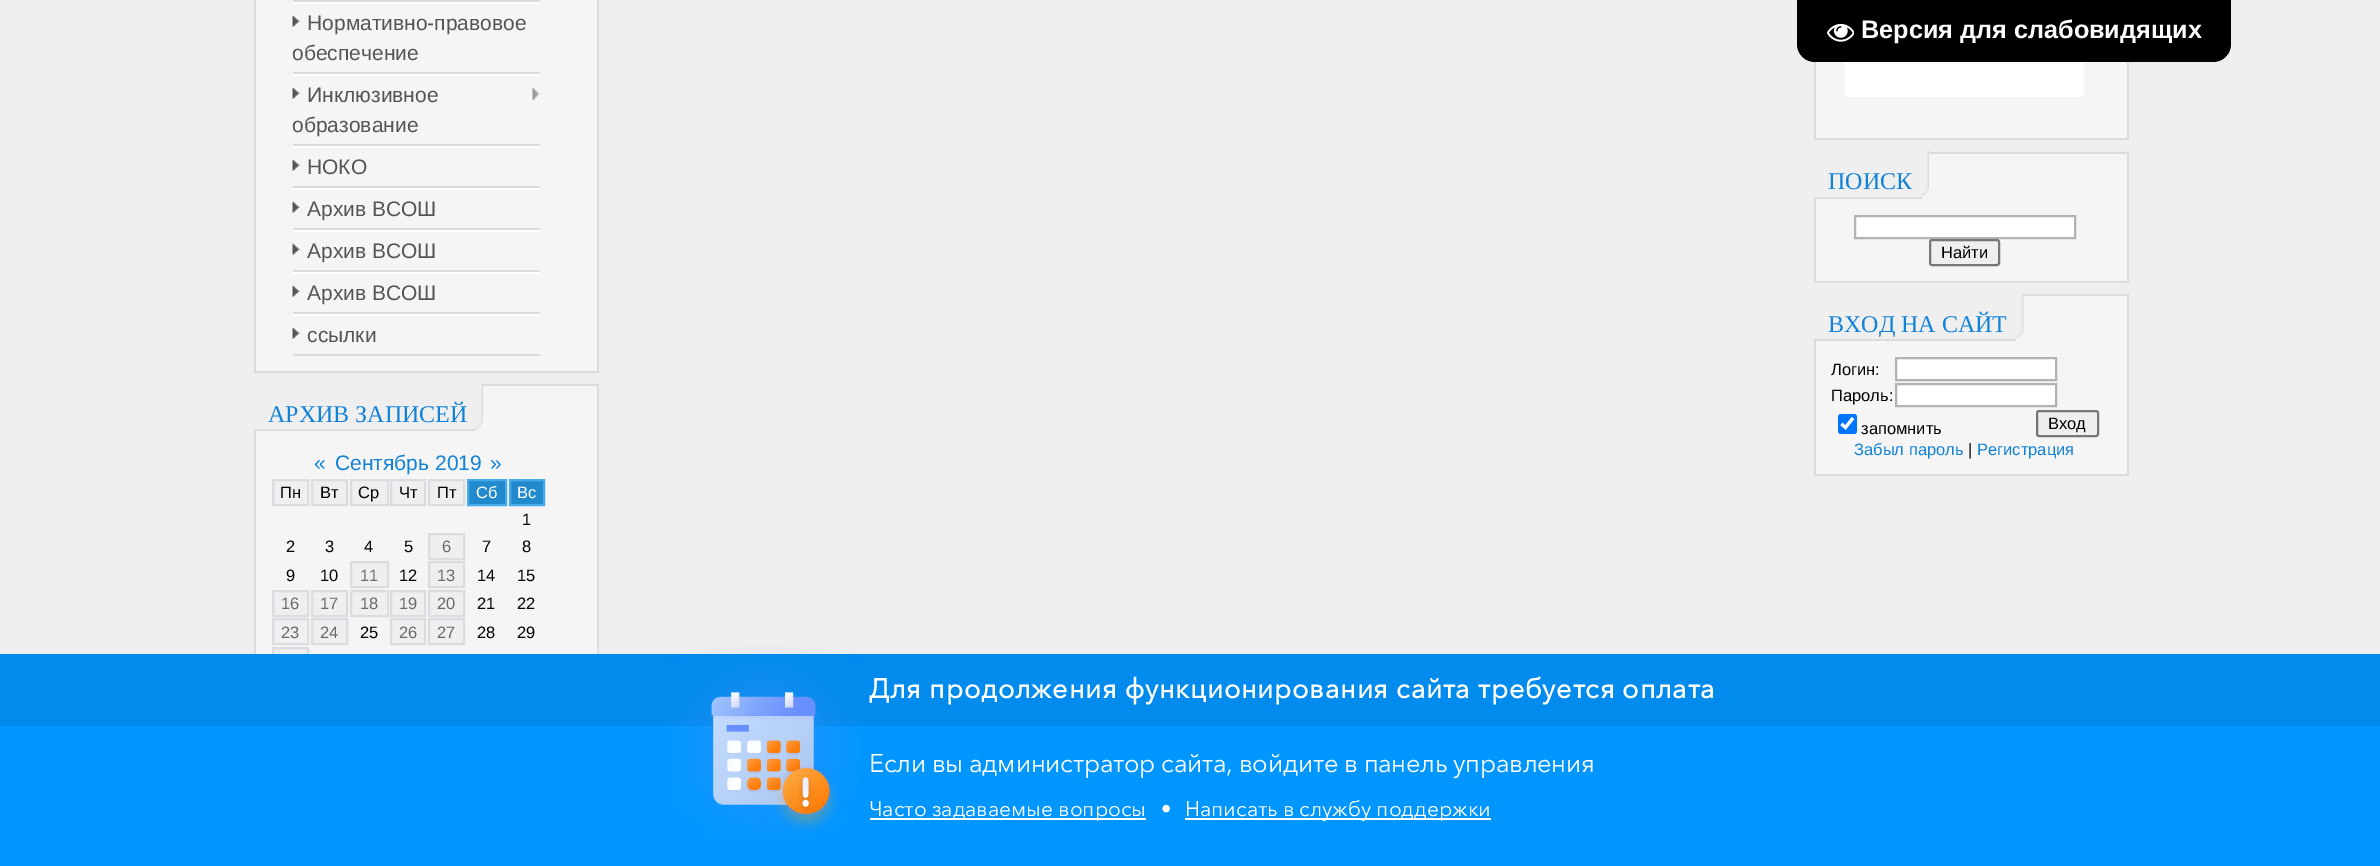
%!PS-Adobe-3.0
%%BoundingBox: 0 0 2380 866
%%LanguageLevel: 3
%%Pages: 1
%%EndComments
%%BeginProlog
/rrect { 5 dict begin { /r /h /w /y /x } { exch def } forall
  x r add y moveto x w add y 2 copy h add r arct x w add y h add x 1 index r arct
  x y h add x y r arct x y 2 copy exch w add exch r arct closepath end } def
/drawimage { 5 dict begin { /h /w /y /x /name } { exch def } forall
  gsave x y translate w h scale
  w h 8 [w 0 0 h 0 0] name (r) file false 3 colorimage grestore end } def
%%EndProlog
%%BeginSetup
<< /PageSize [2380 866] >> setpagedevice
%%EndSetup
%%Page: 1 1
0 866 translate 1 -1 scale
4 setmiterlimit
0.937 setgray
0 0 2380 866 rectfill
0.961 setgray
256 0 341 371 rectfill
0.863 0.859 0.878 setrgbcolor
597 0 2 372 rectfill
254 371 345 2 rectfill
254 0 2 372 rectfill
293 0 247 2 rectfill
1 setgray
293 2 247 2 rectfill
0.863 0.859 0.878 setrgbcolor
293 72 247 2 rectfill
(images/1.raw) 292 15 8 12 drawimage
1 setgray
293 74 247 2 rectfill
0.863 0.859 0.878 setrgbcolor
293 144 247 2 rectfill
(images/1.raw) 292 87 8 12 drawimage
(images/2.raw) 532 87 7 14 drawimage
1 setgray
293 146 247 2 rectfill
0.863 0.859 0.878 setrgbcolor
293 186 247 2 rectfill
(images/1.raw) 292 159 8 12 drawimage
1 setgray
293 188 247 2 rectfill
0.863 0.859 0.878 setrgbcolor
293 228 247 2 rectfill
(images/1.raw) 292 201 8 12 drawimage
1 setgray
293 230 247 2 rectfill
0.863 0.859 0.878 setrgbcolor
293 270 247 2 rectfill
(images/1.raw) 292 243 8 12 drawimage
1 setgray
293 272 247 2 rectfill
0.863 0.859 0.878 setrgbcolor
293 312 247 2 rectfill
(images/1.raw) 292 285 8 12 drawimage
1 setgray
293 314 247 2 rectfill
0.863 0.859 0.878 setrgbcolor
293 354 247 2 rectfill
(images/1.raw) 292 327 8 12 drawimage
0.961 setgray
256 386 341 268 rectfill
0.863 0.859 0.878 setrgbcolor
483 384 116 2 rectfill
597 384 2 270 rectfill
0.937 setgray
256 386 220 43 rectfill
0.863 0.859 0.878 setrgbcolor
254 429 222 2 rectfill
(images/3.raw) 475 383 8 46 drawimage
254 431 2 223 rectfill
0.937 setgray
newpath 273 480 moveto 308 480 lineto 308 505 lineto 273 505 lineto closepath gsave fill grestore
0.863 0.859 0.878 setrgbcolor
2 setlinewidth
stroke
0.937 setgray
newpath 312 480 moveto 347 480 lineto 347 505 lineto 312 505 lineto closepath gsave fill grestore
0.863 0.859 0.878 setrgbcolor
stroke
0.937 setgray
newpath 351 480 moveto 388 480 lineto 388 505 lineto 351 505 lineto closepath gsave fill grestore
0.863 0.859 0.878 setrgbcolor
stroke
0.937 setgray
newpath 391 480 moveto 425 480 lineto 425 505 lineto 391 505 lineto closepath gsave fill grestore
0.863 0.859 0.878 setrgbcolor
stroke
0.937 setgray
newpath 429 480 moveto 464 480 lineto 464 505 lineto 429 505 lineto closepath gsave fill grestore
0.863 0.859 0.878 setrgbcolor
stroke
0.133 0.541 0.8 setrgbcolor
newpath 468 480 moveto 506 480 lineto 506 505 lineto 468 505 lineto closepath gsave fill grestore
0.275 0.667 0.918 setrgbcolor
stroke
0.133 0.541 0.8 setrgbcolor
newpath 510 480 moveto 544 480 lineto 544 505 lineto 510 505 lineto closepath gsave fill grestore
0.275 0.667 0.918 setrgbcolor
stroke
0.937 setgray
newpath 429 534 moveto 464 534 lineto 464 559 lineto 429 559 lineto closepath gsave fill grestore
0.863 0.859 0.878 setrgbcolor
stroke
0.937 setgray
newpath 351 562 moveto 388 562 lineto 388 587 lineto 351 587 lineto closepath gsave fill grestore
0.863 0.859 0.878 setrgbcolor
stroke
0.937 setgray
newpath 429 562 moveto 464 562 lineto 464 587 lineto 429 587 lineto closepath gsave fill grestore
0.863 0.859 0.878 setrgbcolor
stroke
0.937 setgray
newpath 273 591 moveto 308 591 lineto 308 616 lineto 273 616 lineto closepath gsave fill grestore
0.863 0.859 0.878 setrgbcolor
stroke
0.937 setgray
newpath 312 591 moveto 347 591 lineto 347 616 lineto 312 616 lineto closepath gsave fill grestore
0.863 0.859 0.878 setrgbcolor
stroke
0.937 setgray
newpath 351 591 moveto 388 591 lineto 388 616 lineto 351 616 lineto closepath gsave fill grestore
0.863 0.859 0.878 setrgbcolor
stroke
0.937 setgray
newpath 391 591 moveto 425 591 lineto 425 616 lineto 391 616 lineto closepath gsave fill grestore
0.863 0.859 0.878 setrgbcolor
stroke
0.937 setgray
newpath 429 591 moveto 464 591 lineto 464 616 lineto 429 616 lineto closepath gsave fill grestore
0.863 0.859 0.878 setrgbcolor
stroke
0.937 setgray
newpath 273 619 moveto 308 619 lineto 308 644 lineto 273 644 lineto closepath gsave fill grestore
0.863 0.859 0.878 setrgbcolor
stroke
0.937 setgray
newpath 312 619 moveto 347 619 lineto 347 644 lineto 312 644 lineto closepath gsave fill grestore
0.863 0.859 0.878 setrgbcolor
stroke
0.937 setgray
newpath 391 619 moveto 425 619 lineto 425 644 lineto 391 644 lineto closepath gsave fill grestore
0.863 0.859 0.878 setrgbcolor
stroke
0.937 setgray
newpath 429 619 moveto 464 619 lineto 464 644 lineto 429 644 lineto closepath gsave fill grestore
0.863 0.859 0.878 setrgbcolor
stroke
0.937 setgray
274 649 33 5 rectfill
0.863 0.859 0.878 setrgbcolor
273 648 35 25 rectstroke
0.961 setgray
1816 62 311 76 rectfill
0.863 0.859 0.878 setrgbcolor
2127 62 2 78 rectfill
1814 138 315 2 rectfill
1814 61 2 79 rectfill
(images/4.raw) 1845 62 239 35 drawimage
0.961 setgray
1816 154 311 127 rectfill
0.863 0.859 0.878 setrgbcolor
1929 152 200 2 rectfill
2127 152 2 130 rectfill
0.937 setgray
1816 154 106 43 rectfill
0.863 0.859 0.878 setrgbcolor
1814 281 315 2 rectfill
1814 198 2 84 rectfill
1814 197 108 2 rectfill
(images/5.raw) 1921 151 8 45 drawimage
1 setgray
newpath 1855 216 moveto 2075 216 lineto 2075 238 lineto 1855 238 lineto closepath gsave fill grestore
0.698 setgray
stroke
0.937 setgray
1930 240 69 25 2 rrect gsave fill grestore
0.463 setgray
stroke
0.961 setgray
1816 296 311 178 rectfill
0.863 0.859 0.878 setrgbcolor
2023 294 106 2 rectfill
2127 294 2 182 rectfill
0.937 setgray
1816 296 200 43 rectfill
0.863 0.859 0.878 setrgbcolor
1814 339 202 2 rectfill
(images/6.raw) 2016 293 8 46 drawimage
1814 474 315 2 rectfill
1814 341 2 135 rectfill
1 setgray
newpath 1896 358 moveto 2056 358 lineto 2056 380 lineto 1896 380 lineto closepath gsave fill grestore
0.698 setgray
stroke
1 setgray
newpath 1896 384 moveto 2056 384 lineto 2056 406 lineto 1896 406 lineto closepath gsave fill grestore
0.698 setgray
stroke
0 0.459 1 setrgbcolor
1838 414 19 20 3 rrect fill
1 setgray
3.1 setlinewidth
newpath 1841.5 424 moveto 1845.5 427.5 lineto 1853 418 lineto stroke
0.937 setgray
2037 411 61 25 2 rrect gsave fill grestore
0.463 setgray
2 setlinewidth
stroke
0 setgray
newpath 1797 0 moveto 2231 0 lineto 2231 44 lineto 2231 54 2223 62 2213 62 curveto 1815 62 lineto 1805 62 1797 54 1797 44 curveto closepath fill
(images/7.raw) 1827 23 27 19 drawimage
0 0.545 0.929 setrgbcolor
0 654 2380 72 rectfill
0 0.588 1 setrgbcolor
0 726 2380 140 rectfill
(images/8.raw) 669 646 192 198 drawimage
1 setgray
870 818 276 2 rectfill
1185 818 306 2 rectfill
/LiberationSans-Regular [21 0 0 -21 0 0] selectfont
0.333 setgray
307 30 moveto (Нормативно-правовое) show
292 60 moveto (обеспечение) show
307 102 moveto (Инклюзивное) show
292 132 moveto (образование) show
307 174 moveto (НОКО) show
307 216 moveto (Архив ВСОШ) show
307 258 moveto (Архив ВСОШ) show
307 300 moveto (Архив ВСОШ) show
307 342 moveto (ссылки) show
/LiberationSerif-Regular [24 0 0 -24 0 0] selectfont
0.071 0.51 0.847 setrgbcolor
268 422 moveto (АРХИВ ЗАПИСЕЙ) show
/LiberationSans-Regular [21 0 0 -21 0 0] selectfont
314 470 moveto («) show
335 470 moveto (Сентябрь 2019) show
490 470 moveto (») show
/LiberationSans-Regular [16.5 0 0 -16.5 0 0] selectfont
0 setgray
280 498 moveto (Пн) show
320 498 moveto (Вт) show
358 498 moveto (Ср) show
399 498 moveto (Чт) show
437 498 moveto (Пт) show
1 setgray
476 498 moveto (Сб) show
517 498 moveto (Вс) show
0 setgray
522 525 moveto (1) show
286 552 moveto (2) show
325 552 moveto (3) show
364 552 moveto (4) show
404 552 moveto (5) show
0.416 setgray
442 552 moveto (6) show
0 setgray
482 552 moveto (7) show
522 552 moveto (8) show
286 581 moveto (9) show
320 581 moveto (10) show
0.416 setgray
360 581 moveto (11) show
0 setgray
399 581 moveto (12) show
0.416 setgray
437 581 moveto (13) show
0 setgray
477 581 moveto (14) show
517 581 moveto (15) show
0.416 setgray
281 609 moveto (16) show
320 609 moveto (17) show
360 609 moveto (18) show
399 609 moveto (19) show
437 609 moveto (20) show
0 setgray
477 609 moveto (21) show
517 609 moveto (22) show
0.416 setgray
281 638 moveto (23) show
320 638 moveto (24) show
0 setgray
360 638 moveto (25) show
0.416 setgray
399 638 moveto (26) show
437 638 moveto (27) show
0 setgray
477 638 moveto (28) show
517 638 moveto (29) show
/LiberationSerif-Regular [24 0 0 -24 0 0] selectfont
0.071 0.51 0.847 setrgbcolor
1828 189 moveto (ПОИСК) show
/LiberationSans-Regular [16.5 0 0 -16.5 0 0] selectfont
0 setgray
1941 258 moveto (Найти) show
/LiberationSerif-Regular [24 0 0 -24 0 0] selectfont
0.071 0.51 0.847 setrgbcolor
1828 332 moveto (ВХОД НА САЙТ) show
/LiberationSans-Regular [16.5 0 0 -16.5 0 0] selectfont
0 setgray
1831 375 moveto (Логин:) show
1831 401 moveto (Пароль:) show
1861 434 moveto (запомнить) show
2048 429 moveto (Вход) show
0.071 0.51 0.847 setrgbcolor
1854 455 moveto (Забыл пароль) show
0 setgray
1968 455 moveto (|) show
0.071 0.51 0.847 setrgbcolor
1977 455 moveto (Регистрация) show
/LiberationSans-Bold [25.25 0 0 -25.25 0 0] selectfont
1 setgray
1861 38 moveto (Версия для слабовидящих) show
/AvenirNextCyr-Bold [27 0 0 -27 0 0] selectfont
869 698 moveto 0.75 0 (Для продолжения функционирования сайта требуется оплата) ashow
/AvenirNextCyr-Regular [25.5 0 0 -25.5 0 0] selectfont
869 772 moveto -0.3 0 (Если вы администратор сайта, войдите в панель управления) ashow
/AvenirNextCyr-Regular [21 0 0 -21 0 0] selectfont
869 816 moveto (Часто задаваемые вопросы) show
1161 816 moveto (•) show
1185 816 moveto (Написать в службу поддержки) show
showpage
%%EOF
